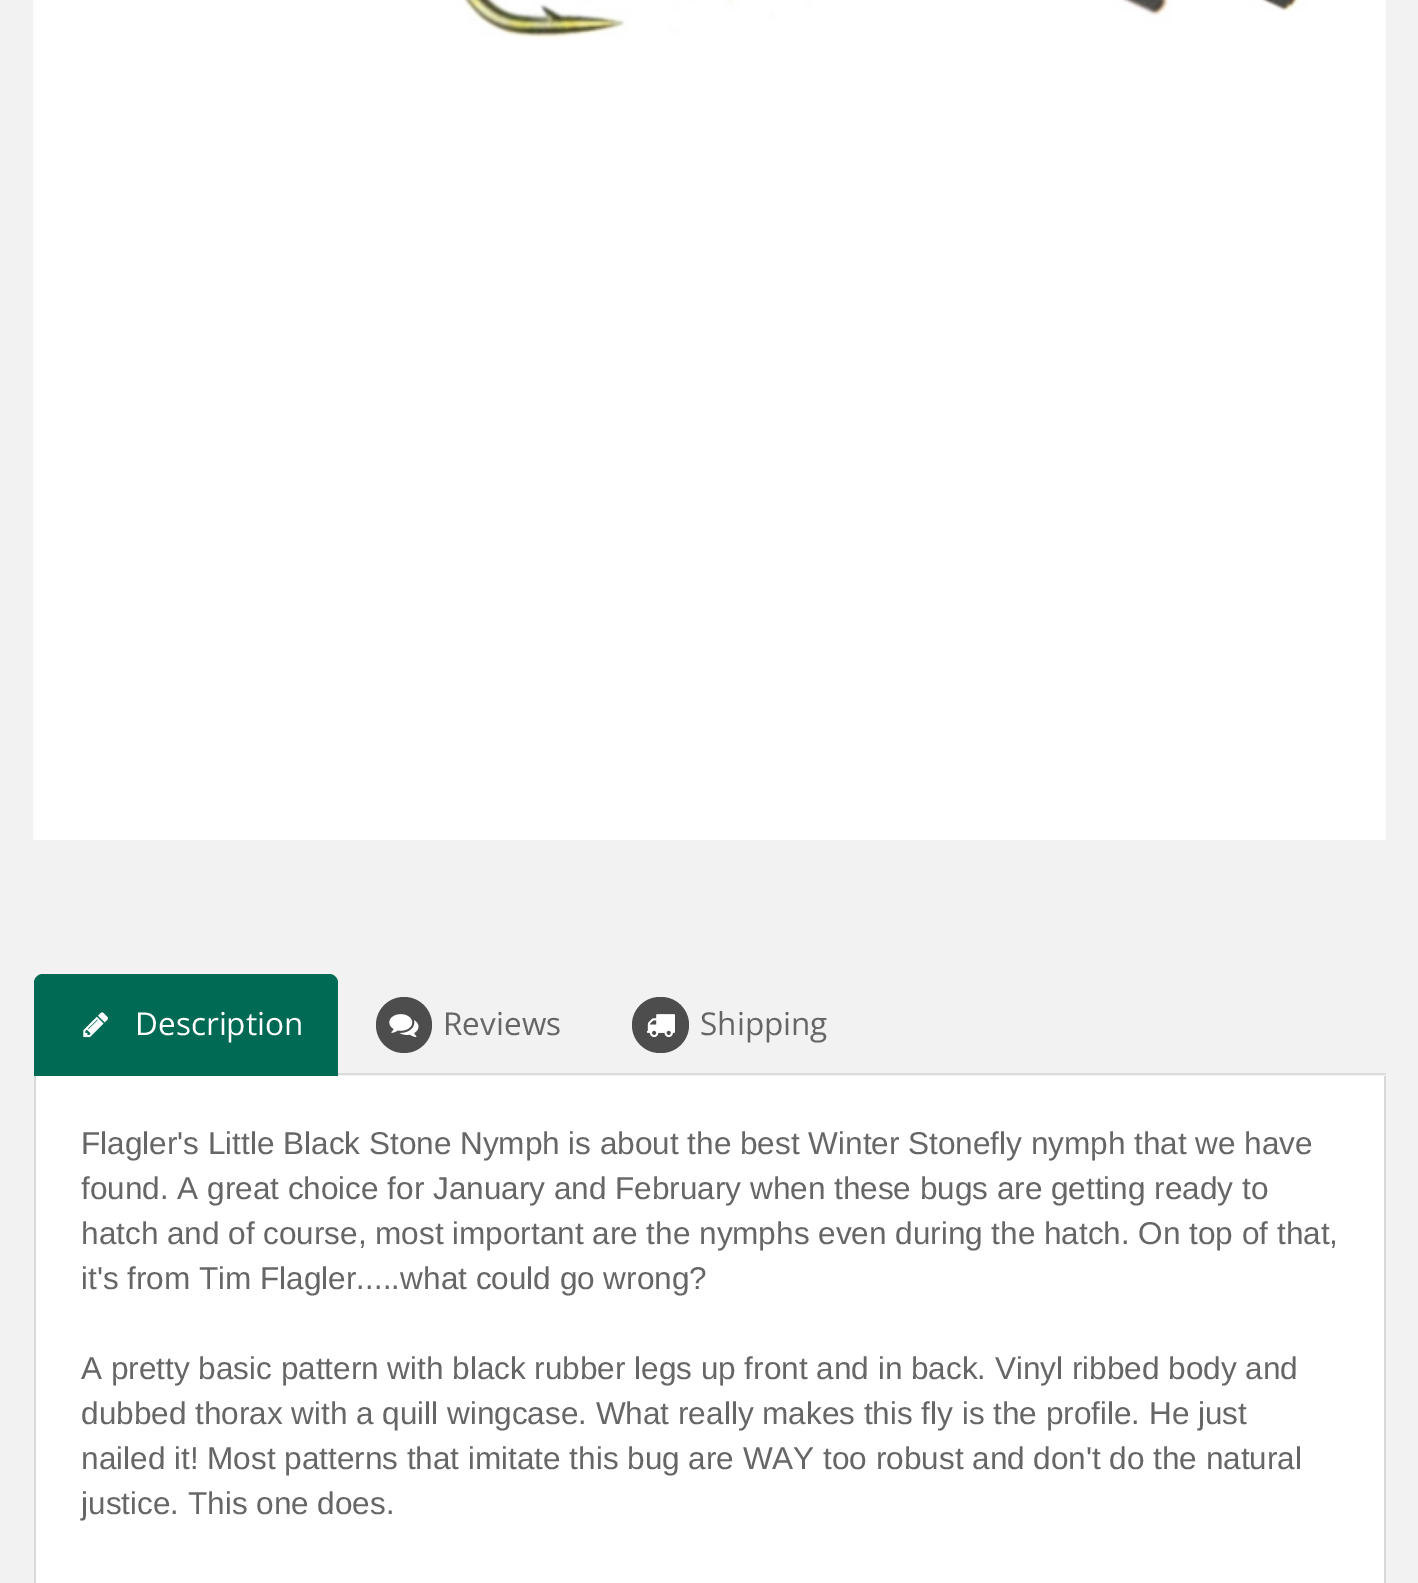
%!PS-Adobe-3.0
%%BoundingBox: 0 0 1418 1583
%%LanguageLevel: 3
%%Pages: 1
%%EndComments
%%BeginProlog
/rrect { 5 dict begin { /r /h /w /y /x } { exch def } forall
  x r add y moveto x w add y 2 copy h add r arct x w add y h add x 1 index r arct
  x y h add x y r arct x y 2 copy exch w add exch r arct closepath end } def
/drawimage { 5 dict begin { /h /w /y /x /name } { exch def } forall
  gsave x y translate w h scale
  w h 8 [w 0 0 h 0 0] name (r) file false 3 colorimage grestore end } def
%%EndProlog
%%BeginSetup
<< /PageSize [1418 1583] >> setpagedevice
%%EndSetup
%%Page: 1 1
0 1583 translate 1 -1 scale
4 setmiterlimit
0.949 setgray
0 0 1418 1583 rectfill
(images/1.raw) 33 0 1353 840 drawimage
0.867 setgray
338 1073 1048 2 rectfill
0 0.416 0.333 setrgbcolor
newpath 43 974 moveto 329 974 lineto 334 974 338 978 338 983 curveto 338 1076 lineto 34 1076 lineto 34 983 lineto 34 978 38 974 43 974 curveto closepath fill
(images/2.raw) 83 1012 25 26 drawimage
0.302 setgray
newpath 404 1025 28 0 360 arc closepath fill
(images/3.raw) 389 1014 30 24 drawimage
632 997 57 56 28 rrect fill
(images/4.raw) 646 1014 29 24 drawimage
1 setgray
36 1076 1348 507 rectfill
0.851 setgray
newpath 34 1076 moveto 1386 1076 lineto 1386 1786 lineto 1386 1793 1381 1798 1375 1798 curveto 45 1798 lineto 39 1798 34 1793 34 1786 curveto closepath 36 1076 moveto 1384 1076 lineto 1384 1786 lineto 1384 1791 1380 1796 1375 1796 curveto 45 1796 lineto 40 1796 36 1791 36 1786 curveto closepath eofill
/OpenSans-Regular [31.5 0 0 -31.5 0 0] selectfont
1 setgray
135 1035 moveto (Description) show
0.4 setgray
443 1035 moveto (Reviews) show
700 1035 moveto (Shipping) show
/LiberationSans-Regular [31.5 0 0 -31.5 0 0] selectfont
81 1154 moveto (Flagler's Little Black Stone Nymph is about the best Winter Stonefly nymph that we have) show
81 1199 moveto (found. A great choice for January and February when these bugs are getting ready to) show
81 1244 moveto (hatch and of course, most important are the nymphs even during the hatch. On top of that,) show
81 1289 moveto (it's from Tim Flagler.....what could go wrong?) show
81 1379 moveto (A pretty basic pattern with black rubber legs up front and in back. Vinyl ribbed body and) show
81 1424 moveto (dubbed thorax with a quill wingcase. What really makes this fly is the profile. He just) show
81 1469 moveto (nailed it! Most patterns that imitate this bug are WAY too robust and don't do the natural) show
81 1514 moveto (justice. This one does.) show
showpage
%%EOF
